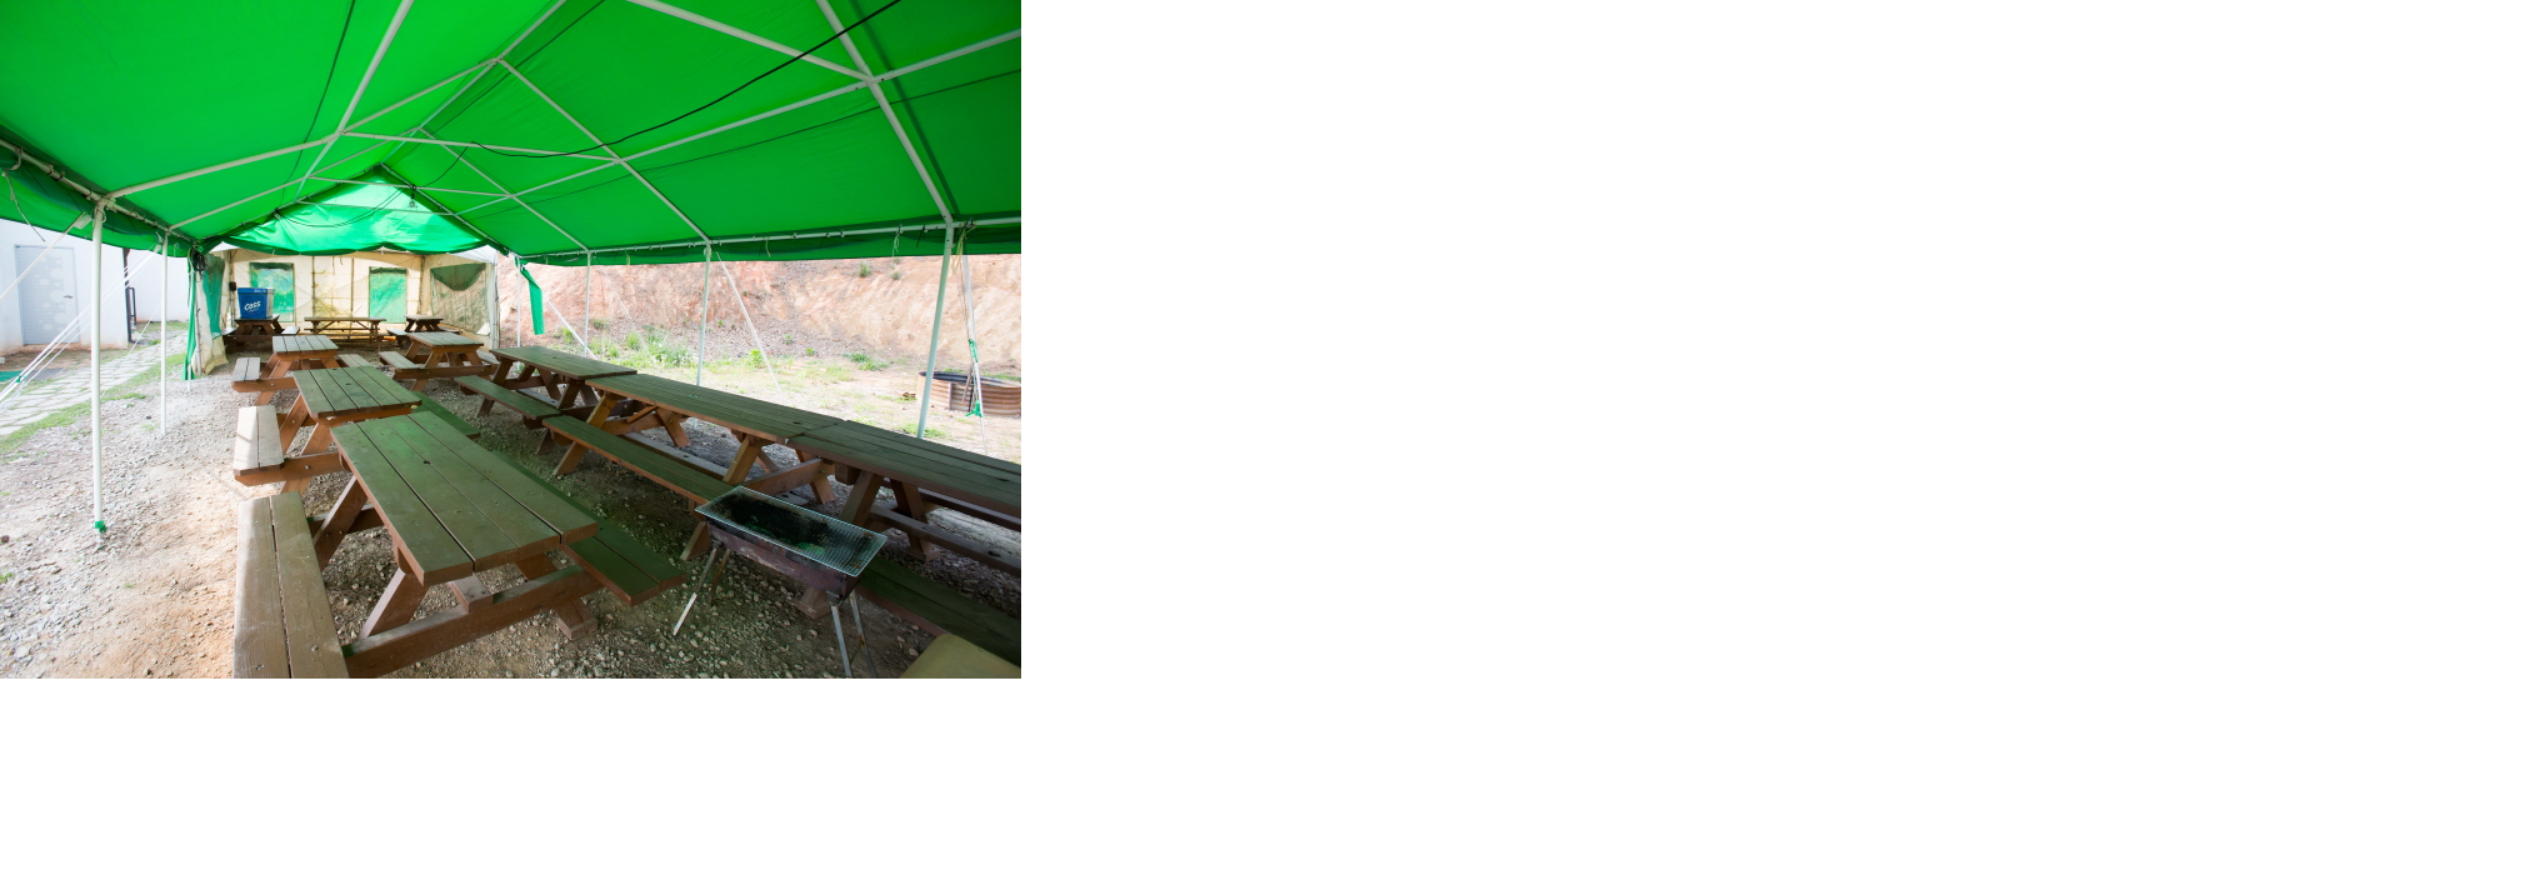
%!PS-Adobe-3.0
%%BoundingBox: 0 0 2523 893
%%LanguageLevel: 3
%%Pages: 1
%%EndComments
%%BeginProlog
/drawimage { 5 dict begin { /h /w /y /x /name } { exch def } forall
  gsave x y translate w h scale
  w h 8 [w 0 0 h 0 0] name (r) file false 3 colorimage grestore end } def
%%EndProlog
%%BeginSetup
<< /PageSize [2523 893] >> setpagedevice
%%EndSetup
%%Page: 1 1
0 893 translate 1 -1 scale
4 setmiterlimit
1 setgray
0 0 2523 893 rectfill
(images/1.raw) 0 0 1022 679 drawimage
showpage
%%EOF
